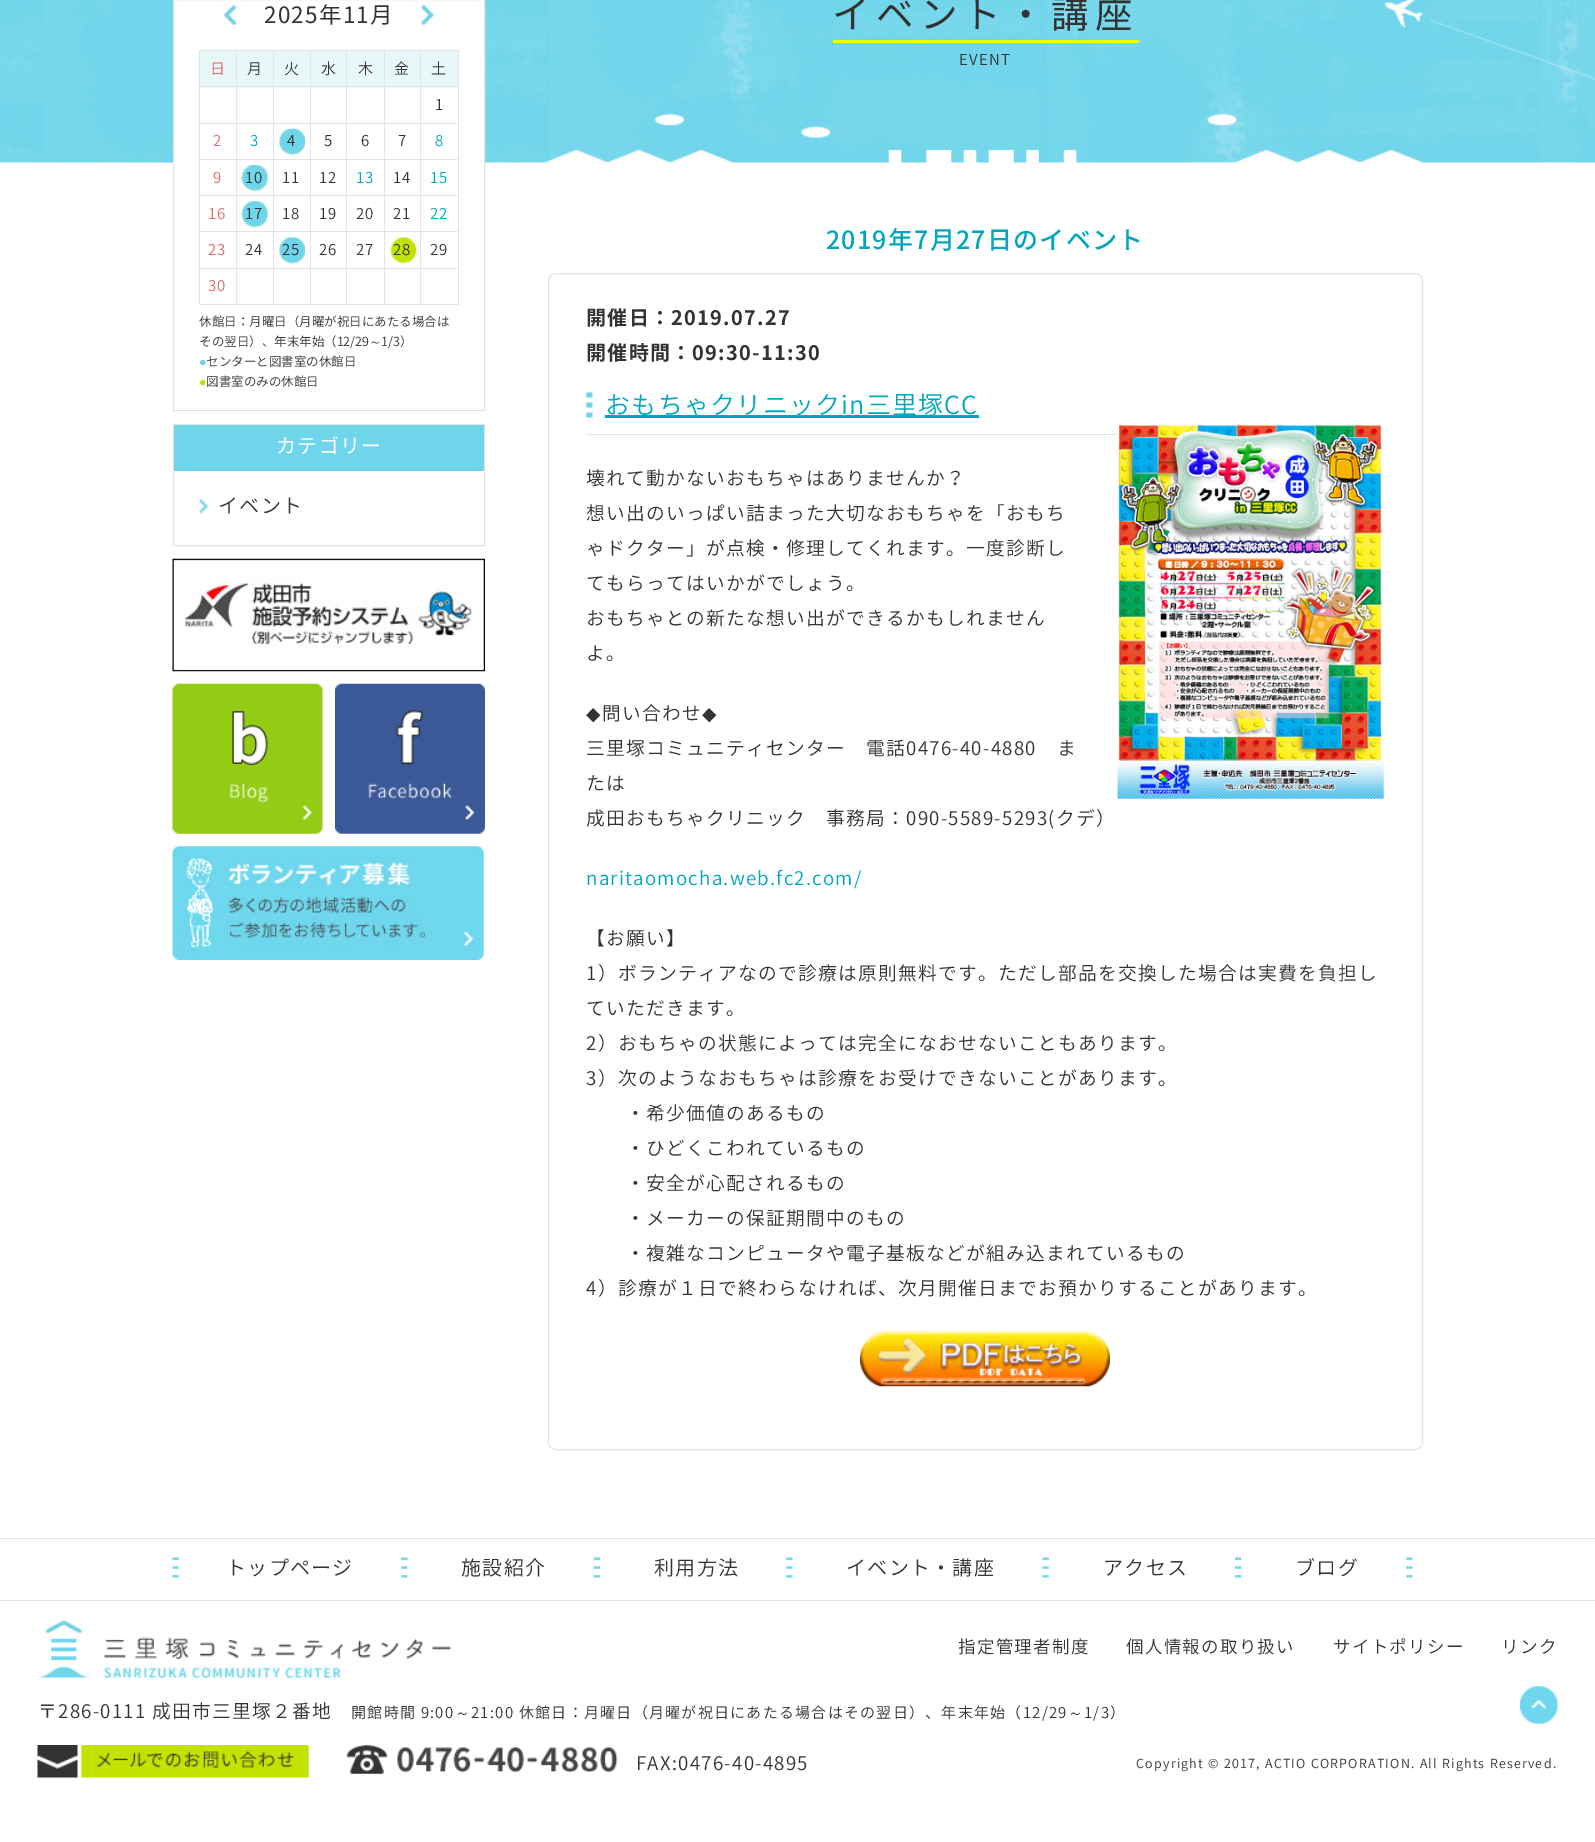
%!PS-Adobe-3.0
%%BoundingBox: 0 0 1595 1842
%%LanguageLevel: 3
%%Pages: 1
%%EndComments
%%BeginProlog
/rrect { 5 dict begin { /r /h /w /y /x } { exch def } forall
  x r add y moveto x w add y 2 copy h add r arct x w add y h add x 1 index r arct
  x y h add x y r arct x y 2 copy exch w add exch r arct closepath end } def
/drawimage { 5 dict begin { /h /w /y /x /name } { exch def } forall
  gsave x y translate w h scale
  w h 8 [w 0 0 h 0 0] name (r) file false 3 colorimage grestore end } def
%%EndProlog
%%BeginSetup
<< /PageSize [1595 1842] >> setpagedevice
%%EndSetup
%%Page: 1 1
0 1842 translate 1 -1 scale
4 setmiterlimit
1 setgray
0 0 1595 1842 rectfill
(images/1.raw) 0 0 1595 163 drawimage
174 0 310 163 rectfill
0.894 setgray
173.5 -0.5 311 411 rectstroke
(images/2.raw) 223 5 14 20 drawimage
(images/3.raw) 421 5 13 20 drawimage
199 50 260 1 rectfill
199 50 1 255 rectfill
0.91 0.969 0.973 setrgbcolor
200 51 36 37 rectfill
237 51 36 37 rectfill
274 51 36 37 rectfill
311 51 73 37 rectfill
385 51 35 37 rectfill
421 51 37 37 rectfill
0.894 setgray
458 50 1 255 rectfill
420 304 39 1 rectfill
420 268 1 37 rectfill
420 268 39 1 rectfill
420 231 1 38 rectfill
420 231 39 1 rectfill
420 195 1 38 rectfill
420 195 39 1 rectfill
420 159 1 37 rectfill
420 159 39 1 rectfill
420 123 1 37 rectfill
420 123 39 1 rectfill
420 86 1 38 rectfill
420 86 39 1 rectfill
420 50 1 38 rectfill
384 304 37 1 rectfill
384 268 1 37 rectfill
384 268 37 1 rectfill
384 231 1 38 rectfill
384 231 37 1 rectfill
384 195 1 38 rectfill
384 195 37 1 rectfill
384 159 1 37 rectfill
384 159 37 1 rectfill
384 123 1 37 rectfill
384 123 37 1 rectfill
384 86 1 38 rectfill
384 86 37 1 rectfill
384 50 1 38 rectfill
346 304 39 1 rectfill
346 268 1 37 rectfill
346 268 39 1 rectfill
346 231 1 38 rectfill
346 231 39 1 rectfill
346 195 1 38 rectfill
346 195 39 1 rectfill
346 159 1 37 rectfill
346 159 39 1 rectfill
346 123 1 37 rectfill
346 123 39 1 rectfill
346 86 1 38 rectfill
346 86 39 1 rectfill
346 50 1 38 rectfill
310 304 38 1 rectfill
310 268 1 37 rectfill
310 268 38 1 rectfill
310 231 1 38 rectfill
310 231 38 1 rectfill
310 195 1 38 rectfill
310 195 38 1 rectfill
310 159 1 37 rectfill
310 159 38 1 rectfill
310 123 1 37 rectfill
310 123 38 1 rectfill
310 86 1 38 rectfill
310 86 38 1 rectfill
310 50 1 38 rectfill
273 304 38 1 rectfill
273 268 1 37 rectfill
273 268 38 1 rectfill
273 231 1 38 rectfill
273 231 38 1 rectfill
273 195 1 38 rectfill
273 195 38 1 rectfill
273 159 1 37 rectfill
273 159 38 1 rectfill
273 123 1 37 rectfill
273 123 38 1 rectfill
273 86 1 38 rectfill
273 86 38 1 rectfill
273 50 1 38 rectfill
236 304 38 1 rectfill
236 268 1 37 rectfill
236 268 38 1 rectfill
236 231 1 38 rectfill
236 231 38 1 rectfill
236 195 1 38 rectfill
236 195 38 1 rectfill
236 159 1 37 rectfill
236 159 38 1 rectfill
236 123 1 37 rectfill
236 123 38 1 rectfill
236 86 1 38 rectfill
236 86 38 1 rectfill
236 50 1 38 rectfill
199 86 39 1 rectfill
199 123 39 1 rectfill
199 159 39 1 rectfill
(images/4.raw) 278 128 27 27 drawimage
199 195 39 1 rectfill
(images/5.raw) 241 165 27 27 drawimage
199 231 39 1 rectfill
(images/6.raw) 241 201 27 27 drawimage
199 268 39 1 rectfill
(images/7.raw) 278 237 27 27 drawimage
(images/8.raw) 390 237 27 27 drawimage
199 304 39 1 rectfill
173.5 424.5 311 121 rectstroke
0.435 0.835 0.922 setrgbcolor
174 425 310 46 rectfill
(images/9.raw) 198 498 11 16 drawimage
(images/10.raw) 172 558 313 114 drawimage
(images/11.raw) 172 683 151 151 drawimage
(images/12.raw) 335 683 150 151 drawimage
(images/13.raw) 172 846 312 114 drawimage
0.988 1 0 setrgbcolor
833 40 306 3 rectfill
0.894 setgray
548.5 273.5 874 1176 7.5 rrect stroke
(images/14.raw) 586 392 7 26 drawimage
586 434 798 1 rectfill
0 0.655 0.741 setrgbcolor
605 415 374 3 rectfill
(images/15.raw) 1117 424 267 375 drawimage
(images/16.raw) 860 1330 250 57 drawimage
0.894 setgray
0 1538 1595 1 rectfill
0 1600 1595 1 rectfill
(images/17.raw) 172 1557 7 21 drawimage
(images/18.raw) 401 1557 7 21 drawimage
(images/19.raw) 593 1557 7 21 drawimage
(images/18.raw) 786 1557 7 21 drawimage
(images/17.raw) 1042 1557 7 21 drawimage
(images/20.raw) 1235 1557 7 21 drawimage
(images/18.raw) 1406 1557 7 21 drawimage
(images/21.raw) 37 1620 415 59 drawimage
(images/22.raw) 37 1745 272 33 drawimage
(images/23.raw) 346 1745 272 29 drawimage
(images/24.raw) 1520 1686 38 38 drawimage
/NotoSansJP-Regular [22.5 0 0 -22.5 0 0] selectfont
0.2 setgray
264 23 moveto 1.25 0 (2025年11月) ashow
/NotoSansJP-Light [15 0 0 -15 0 0] selectfont
0.851 0.424 0.424 setrgbcolor
210 74 moveto 1.25 0 (日) ashow
0.2 setgray
247 74 moveto 1.25 0 (月) ashow
284 74 moveto 1.25 0 (火) ashow
321 74 moveto 1.25 0 (水) ashow
358 74 moveto 1.25 0 (木) ashow
394 74 moveto 1.25 0 (金) ashow
431 74 moveto 1.25 0 (土) ashow
435 110 moveto 1.25 0 (1) ashow
0.851 0.424 0.424 setrgbcolor
213 146 moveto 1.25 0 (2) ashow
0 0.655 0.741 setrgbcolor
250 146 moveto 1.25 0 (3) ashow
0.2 setgray
287 146 moveto 1.25 0 (4) ashow
324 146 moveto 1.25 0 (5) ashow
361 146 moveto 1.25 0 (6) ashow
398 146 moveto 1.25 0 (7) ashow
0 0.655 0.741 setrgbcolor
435 146 moveto 1.25 0 (8) ashow
0.851 0.424 0.424 setrgbcolor
213 183 moveto 1.25 0 (9) ashow
0.2 setgray
245 183 moveto 1.25 0 (10) ashow
282 183 moveto 1.25 0 (11) ashow
319 183 moveto 1.25 0 (12) ashow
0 0.655 0.741 setrgbcolor
356 183 moveto 1.25 0 (13) ashow
0.2 setgray
393 183 moveto 1.25 0 (14) ashow
0 0.655 0.741 setrgbcolor
430 183 moveto 1.25 0 (15) ashow
0.851 0.424 0.424 setrgbcolor
208 219 moveto 1.25 0 (16) ashow
0.2 setgray
245 219 moveto 1.25 0 (17) ashow
282 219 moveto 1.25 0 (18) ashow
319 219 moveto 1.25 0 (19) ashow
356 219 moveto 1.25 0 (20) ashow
393 219 moveto 1.25 0 (21) ashow
0 0.655 0.741 setrgbcolor
430 219 moveto 1.25 0 (22) ashow
0.851 0.424 0.424 setrgbcolor
208 255 moveto 1.25 0 (23) ashow
0.2 setgray
245 255 moveto 1.25 0 (24) ashow
282 255 moveto 1.25 0 (25) ashow
319 255 moveto 1.25 0 (26) ashow
356 255 moveto 1.25 0 (27) ashow
393 255 moveto 1.25 0 (28) ashow
430 255 moveto 1.25 0 (29) ashow
0.851 0.424 0.424 setrgbcolor
208 291 moveto 1.25 0 (30) ashow
/NotoSansJP-Light [12.5 0 0 -12.5 0 0] selectfont
0.2 setgray
199 326 moveto (休館日：月曜日（月曜が祝日にあたる場合は) show
199 346 moveto (その翌日）、年末年始（12/29) show
/WenQuanYiZenHei-Medium [12.5 0 0 -12.5 0 0] selectfont
369 346 moveto (～) show
/NotoSansJP-Light [12.5 0 0 -12.5 0 0] selectfont
381 346 moveto (1/3）) show
/LiberationSans-Regular [12.5 0 0 -12.5 0 0] selectfont
0.435 0.831 0.918 setrgbcolor
199 366 moveto (●) show
/NotoSansJP-Light [12.5 0 0 -12.5 0 0] selectfont
0.2 setgray
206 366 moveto (センターと図書室の休館日) show
/LiberationSans-Regular [12.5 0 0 -12.5 0 0] selectfont
0.761 0.89 0 setrgbcolor
199 386 moveto (●) show
/NotoSansJP-Light [12.5 0 0 -12.5 0 0] selectfont
0.2 setgray
206 386 moveto (図書室のみの休館日) show
/NotoSansJP-Regular [20 0 0 -20 0 0] selectfont
1 setgray
276 453 moveto 1.25 0 (カテゴリー) ashow
/NotoSansJP-Light [20 0 0 -20 0 0] selectfont
0.2 setgray
218 513 moveto 1.25 0 (イベント) ashow
/NotoSansJP-Regular [37.5 0 0 -37.5 0 0] selectfont
832 28 moveto 6.25 0 (イベント・講座) ashow
/NotoSansJP-Light [15 0 0 -15 0 0] selectfont
959 65 moveto 1.25 0 (EVENT) ashow
/NotoSansJP-Medium [25 0 0 -25 0 0] selectfont
0 0.655 0.741 setrgbcolor
826 249 moveto 1.25 0 (2019年7月27日のイベント) ashow
/NotoSansJP-Bold [20 0 0 -20 0 0] selectfont
0.2 setgray
586 325 moveto 1.25 0 (開催日：2019.07.27) ashow
586 360 moveto 1.25 0 (開催時間：09:30-11:30) ashow
/NotoSansJP-Light [25 0 0 -25 0 0] selectfont
0 0.655 0.741 setrgbcolor
605 414 moveto 1.25 0 (おもちゃクリニックin三里塚CC) ashow
/NotoSansJP-Light [18.75 0 0 -18.75 0 0] selectfont
0.2 setgray
586 485 moveto 1.25 0 (壊れて動かないおもちゃはありませんか？) ashow
586 520 moveto 1.25 0 (想い出のいっぱい詰まった大切なおもちゃを「おもち) ashow
586 555 moveto 1.25 0 (ゃドクター」が点検・修理してくれます。一度診断し) ashow
586 590 moveto 1.25 0 (てもらってはいかがでしょう。) ashow
586 625 moveto 1.25 0 (おもちゃとの新たな想い出ができるかもしれません) ashow
586 660 moveto 1.25 0 (よ。) ashow
/DejaVuSans-Regular [18.75 0 0 -18.75 0 0] selectfont
586 720 moveto 1.25 0 (◆) ashow
/NotoSansJP-Light [18.75 0 0 -18.75 0 0] selectfont
602 720 moveto 1.25 0 (問い合わせ) ashow
/DejaVuSans-Regular [18.75 0 0 -18.75 0 0] selectfont
702 720 moveto 1.25 0 (◆) ashow
/NotoSansJP-Light [18.75 0 0 -18.75 0 0] selectfont
586 755 moveto 1.25 0 (三里塚コミュニティセンター　電話0476-40-4880　ま) ashow
586 790 moveto 1.25 0 (たは) ashow
586 825 moveto 1.25 0 (成田おもちゃクリニック　事務局：090-5589-5293\(クデ）) ashow
0 0.655 0.741 setrgbcolor
586 885 moveto 1.25 0 (naritaomocha.web.fc2.com/) ashow
0.2 setgray
586 945 moveto 1.25 0 (【お願い】) ashow
586 980 moveto 1.25 0 (1）ボランティアなので診療は原則無料です。ただし部品を交換した場合は実費を負担し) ashow
586 1015 moveto 1.25 0 (ていただきます。) ashow
586 1050 moveto 1.25 0 (2）おもちゃの状態によっては完全になおせないこともあります。) ashow
586 1085 moveto 1.25 0 (3）次のようなおもちゃは診療をお受けできないことがあります。) ashow
626 1120 moveto 1.25 0 (・希少価値のあるもの) ashow
626 1155 moveto 1.25 0 (・ひどくこわれているもの) ashow
626 1190 moveto 1.25 0 (・安全が心配されるもの) ashow
626 1225 moveto 1.25 0 (・メーカーの保証期間中のもの) ashow
626 1260 moveto 1.25 0 (・複雑なコンピュータや電子基板などが組み込まれているもの) ashow
586 1295 moveto 1.25 0 (4）診療が１日で終わらなければ、次月開催日までお預かりすることがあります。) ashow
/NotoSansJP-Light [20 0 0 -20 0 0] selectfont
226 1575 moveto 1.25 0 (トップページ) ashow
461 1575 moveto 1.25 0 (施設紹介) ashow
654 1575 moveto 1.25 0 (利用方法) ashow
846 1575 moveto 1.25 0 (イベント・講座) ashow
1103 1575 moveto 1.25 0 (アクセス) ashow
1295 1575 moveto 1.25 0 (ブログ) ashow
/NotoSansJP-Light [17.5 0 0 -17.5 0 0] selectfont
958 1653 moveto 1.25 0 (指定管理者制度) ashow
1126 1653 moveto 1.25 0 (個人情報の取り扱い) ashow
1333 1653 moveto 1.25 0 (サイトポリシー) ashow
1501 1653 moveto 1.25 0 (リンク) ashow
/NotoSansJP-Light [18.75 0 0 -18.75 0 0] selectfont
38 1718 moveto 1.25 0 (〒286-0111 成田市三里塚２番地) ashow
/NotoSansJP-Light [15 0 0 -15 0 0] selectfont
351 1718 moveto 1.25 0 (開館時間 9:00) ashow
/WenQuanYiZenHei-Medium [15 0 0 -15 0 0] selectfont
455 1718 moveto 1.25 0 (～) ashow
/NotoSansJP-Light [15 0 0 -15 0 0] selectfont
471 1718 moveto 1.25 0 (21:00 休館日：月曜日（月曜が祝日にあたる場合はその翌日）、年末年始（12/29) ashow
/WenQuanYiZenHei-Medium [15 0 0 -15 0 0] selectfont
1068 1718 moveto 1.25 0 (～) ashow
/NotoSansJP-Light [15 0 0 -15 0 0] selectfont
1084 1718 moveto 1.25 0 (1/3）) ashow
/NotoSansJP-Light [18.75 0 0 -18.75 0 0] selectfont
636 1770 moveto 1.25 0 (FAX:0476-40-4895) ashow
/NotoSansJP-Light [12.5 0 0 -12.5 0 0] selectfont
1136 1768 moveto 1.25 0 (Copyright © 2017, ACTIO CORPORATION. All Rights Reserved.) ashow
showpage
%%EOF
